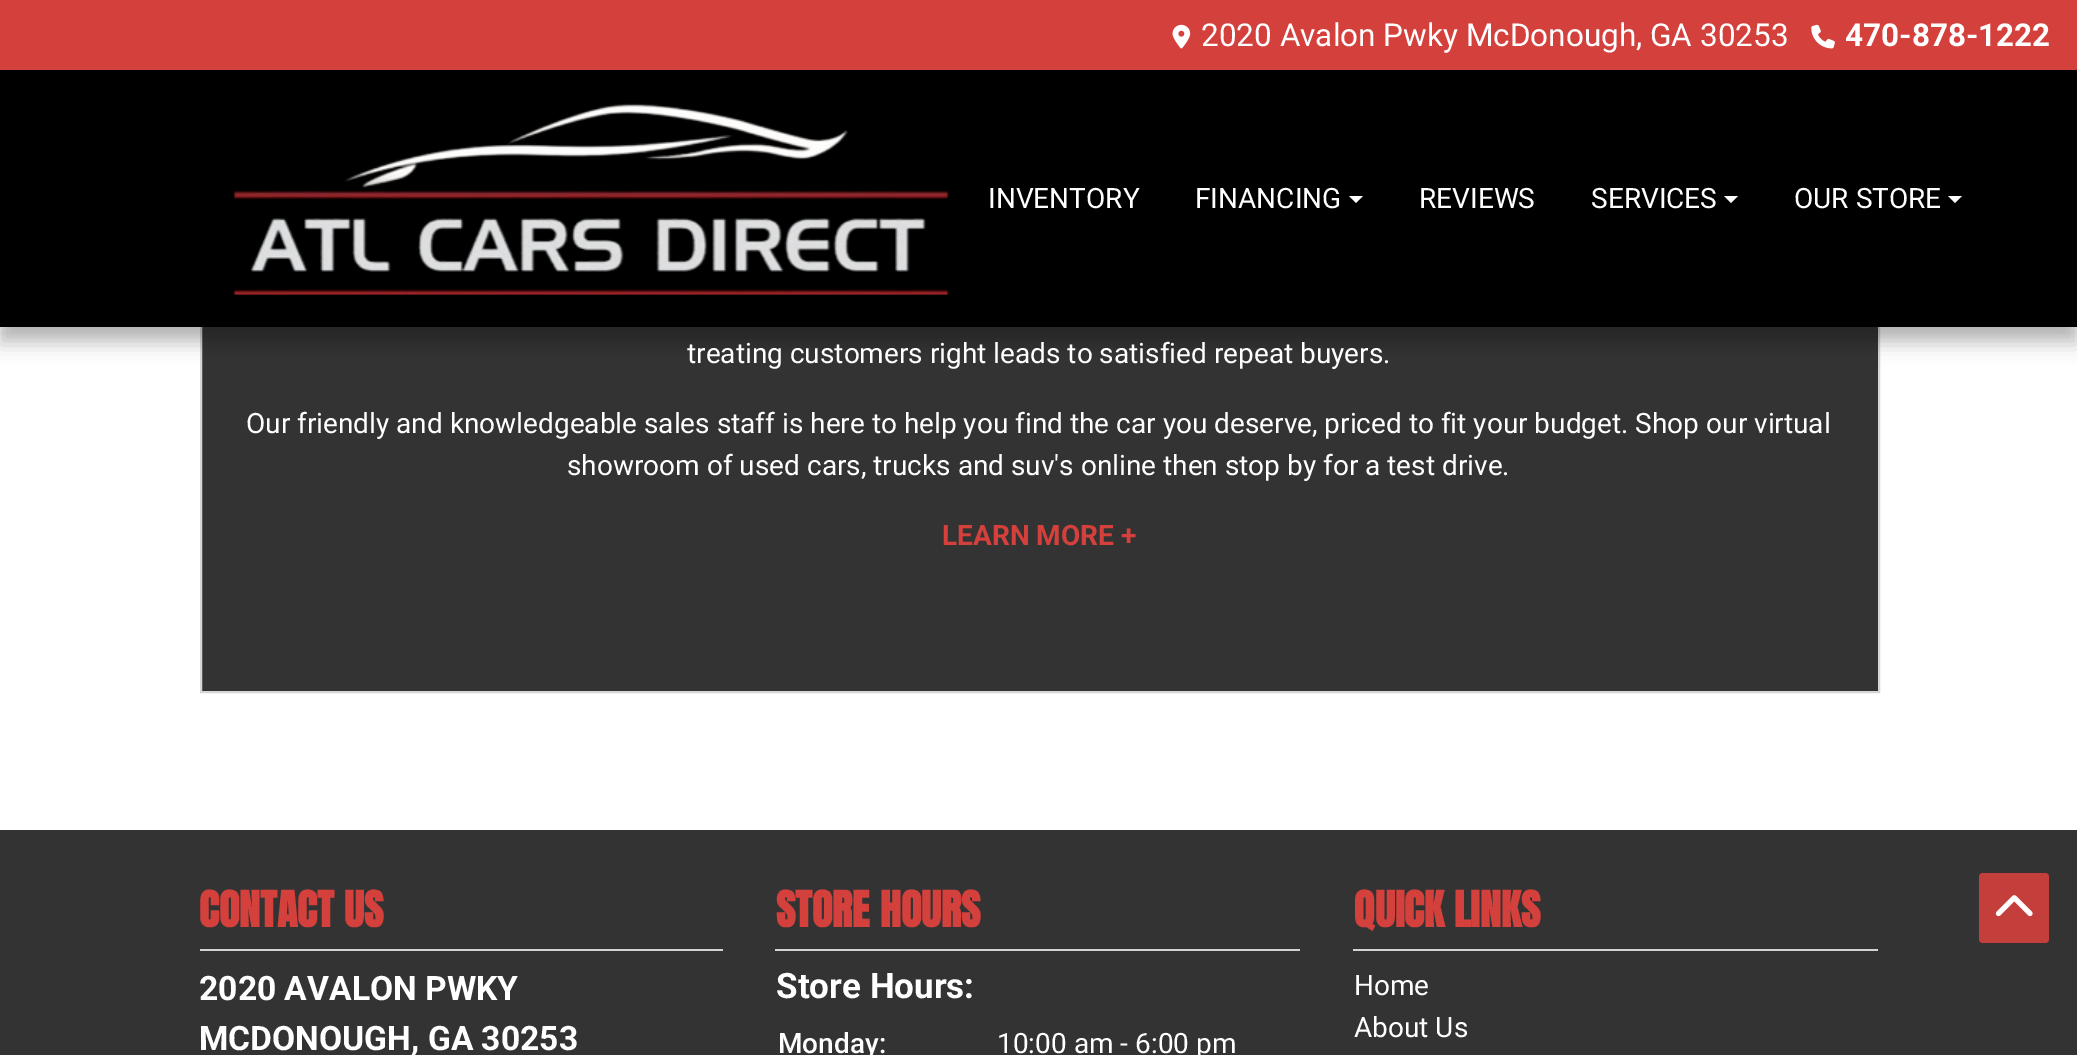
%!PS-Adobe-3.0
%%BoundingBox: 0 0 2077 1055
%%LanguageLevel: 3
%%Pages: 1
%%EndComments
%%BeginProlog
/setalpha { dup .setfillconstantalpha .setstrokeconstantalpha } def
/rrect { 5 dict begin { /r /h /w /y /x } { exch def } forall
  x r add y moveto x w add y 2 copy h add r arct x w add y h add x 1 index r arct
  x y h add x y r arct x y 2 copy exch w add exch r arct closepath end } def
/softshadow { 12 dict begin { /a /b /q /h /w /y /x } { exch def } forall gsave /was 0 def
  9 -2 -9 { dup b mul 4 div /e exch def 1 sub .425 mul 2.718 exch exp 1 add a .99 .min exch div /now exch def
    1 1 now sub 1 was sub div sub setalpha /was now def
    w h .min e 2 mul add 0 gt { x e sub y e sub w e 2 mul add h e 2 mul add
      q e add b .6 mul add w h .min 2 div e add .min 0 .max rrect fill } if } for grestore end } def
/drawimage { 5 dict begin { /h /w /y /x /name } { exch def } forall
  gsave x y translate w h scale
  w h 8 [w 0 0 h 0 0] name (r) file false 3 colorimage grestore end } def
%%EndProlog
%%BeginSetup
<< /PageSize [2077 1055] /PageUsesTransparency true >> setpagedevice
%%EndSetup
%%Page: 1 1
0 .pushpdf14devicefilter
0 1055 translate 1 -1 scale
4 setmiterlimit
1 setgray
0 0 2077 1055 rectfill
0.2 setgray
202 327 1676 364 rectfill
0.839 setgray
2 setlinewidth
201 75 1678 617 rectstroke
0 setgray
0 9 2077 327 0 4.5 0.1 softshadow
0 18 2077 327 0 9 0.2 softshadow
0 70 2077 257 rectfill
0.831 0.251 0.235 setrgbcolor
0 0 2077 70 rectfill
(images/1.raw) 1172 24 19 25 drawimage
(images/2.raw) 1811 24 24 25 drawimage
(images/3.raw) 233 103 716 192 drawimage
1 setgray
newpath 1349 196 moveto 1363 196 lineto 1356 203 lineto closepath fill
newpath 1724 196 moveto 1738 196 lineto 1731 203 lineto closepath fill
newpath 1948 196 moveto 1962 196 lineto 1955 203 lineto closepath fill
0.2 setgray
0 830 2077 225 rectfill
0.827 setgray
200 949 523 2 rectfill
775 949 525 2 rectfill
1353 949 525 2 rectfill
0.9 setalpha
0.831 0.251 0.235 setrgbcolor
1979 873 70 70 4 rrect fill
1 setalpha
(images/4.raw) 1995 895 38 22 drawimage
/Roboto-Regular [31.5 0 0 -31.5 0 0] selectfont
1 setgray
1201 46 moveto (2020 Avalon Pwky McDonough, GA 30253) show
/Roboto-Bold [31.5 0 0 -31.5 0 0] selectfont
1845 46 moveto (470-878-1222) show
/Roboto-Regular [28 0 0 -28 0 0] selectfont
988 208 moveto (INVENTORY) show
1195 208 moveto (FINANCING) show
1419 208 moveto (REVIEWS) show
1591 208 moveto (SERVICES) show
1794 208 moveto (OUR STORE) show
687 363 moveto (treating customers right leads to satisfied repeat buyers.) show
246 433 moveto (Our friendly and knowledgeable sales staff is here to help you find the car you deserve, priced to fit your budget. Shop our virtual) show
567 475 moveto (showroom of used cars, trucks and suv's online then stop by for a test drive.) show
/Roboto-Bold [28 0 0 -28 0 0] selectfont
0.831 0.251 0.235 setrgbcolor
942 545 moveto (LEARN MORE +) show
/Anton-Bold [42 0 0 -42 0 0] selectfont
199 927 moveto (CONTACT US) show
/Roboto-Bold [33.6 0 0 -33.6 0 0] selectfont
1 setgray
199 1000 moveto (2020 AVALON PWKY) show
199 1050 moveto (MCDONOUGH, GA 30253) show
/Anton-Bold [42 0 0 -42 0 0] selectfont
0.831 0.251 0.235 setrgbcolor
776 927 moveto (STORE HOURS) show
/Roboto-Bold [35 0 0 -35 0 0] selectfont
1 setgray
776 998 moveto (Store Hours:) show
/Roboto-Medium [28 0 0 -28 0 0] selectfont
778 1053 moveto (Monday:) show
/Roboto-Regular [28 0 0 -28 0 0] selectfont
997 1053 moveto (10:00 am - 6:00 pm) show
/Anton-Bold [42 0 0 -42 0 0] selectfont
0.831 0.251 0.235 setrgbcolor
1354 927 moveto (QUICK LINKS) show
/Roboto-Regular [28 0 0 -28 0 0] selectfont
1 setgray
1354 995 moveto (Home) show
1354 1037 moveto (About Us) show
.poppdf14devicefilter showpage
%%EOF
